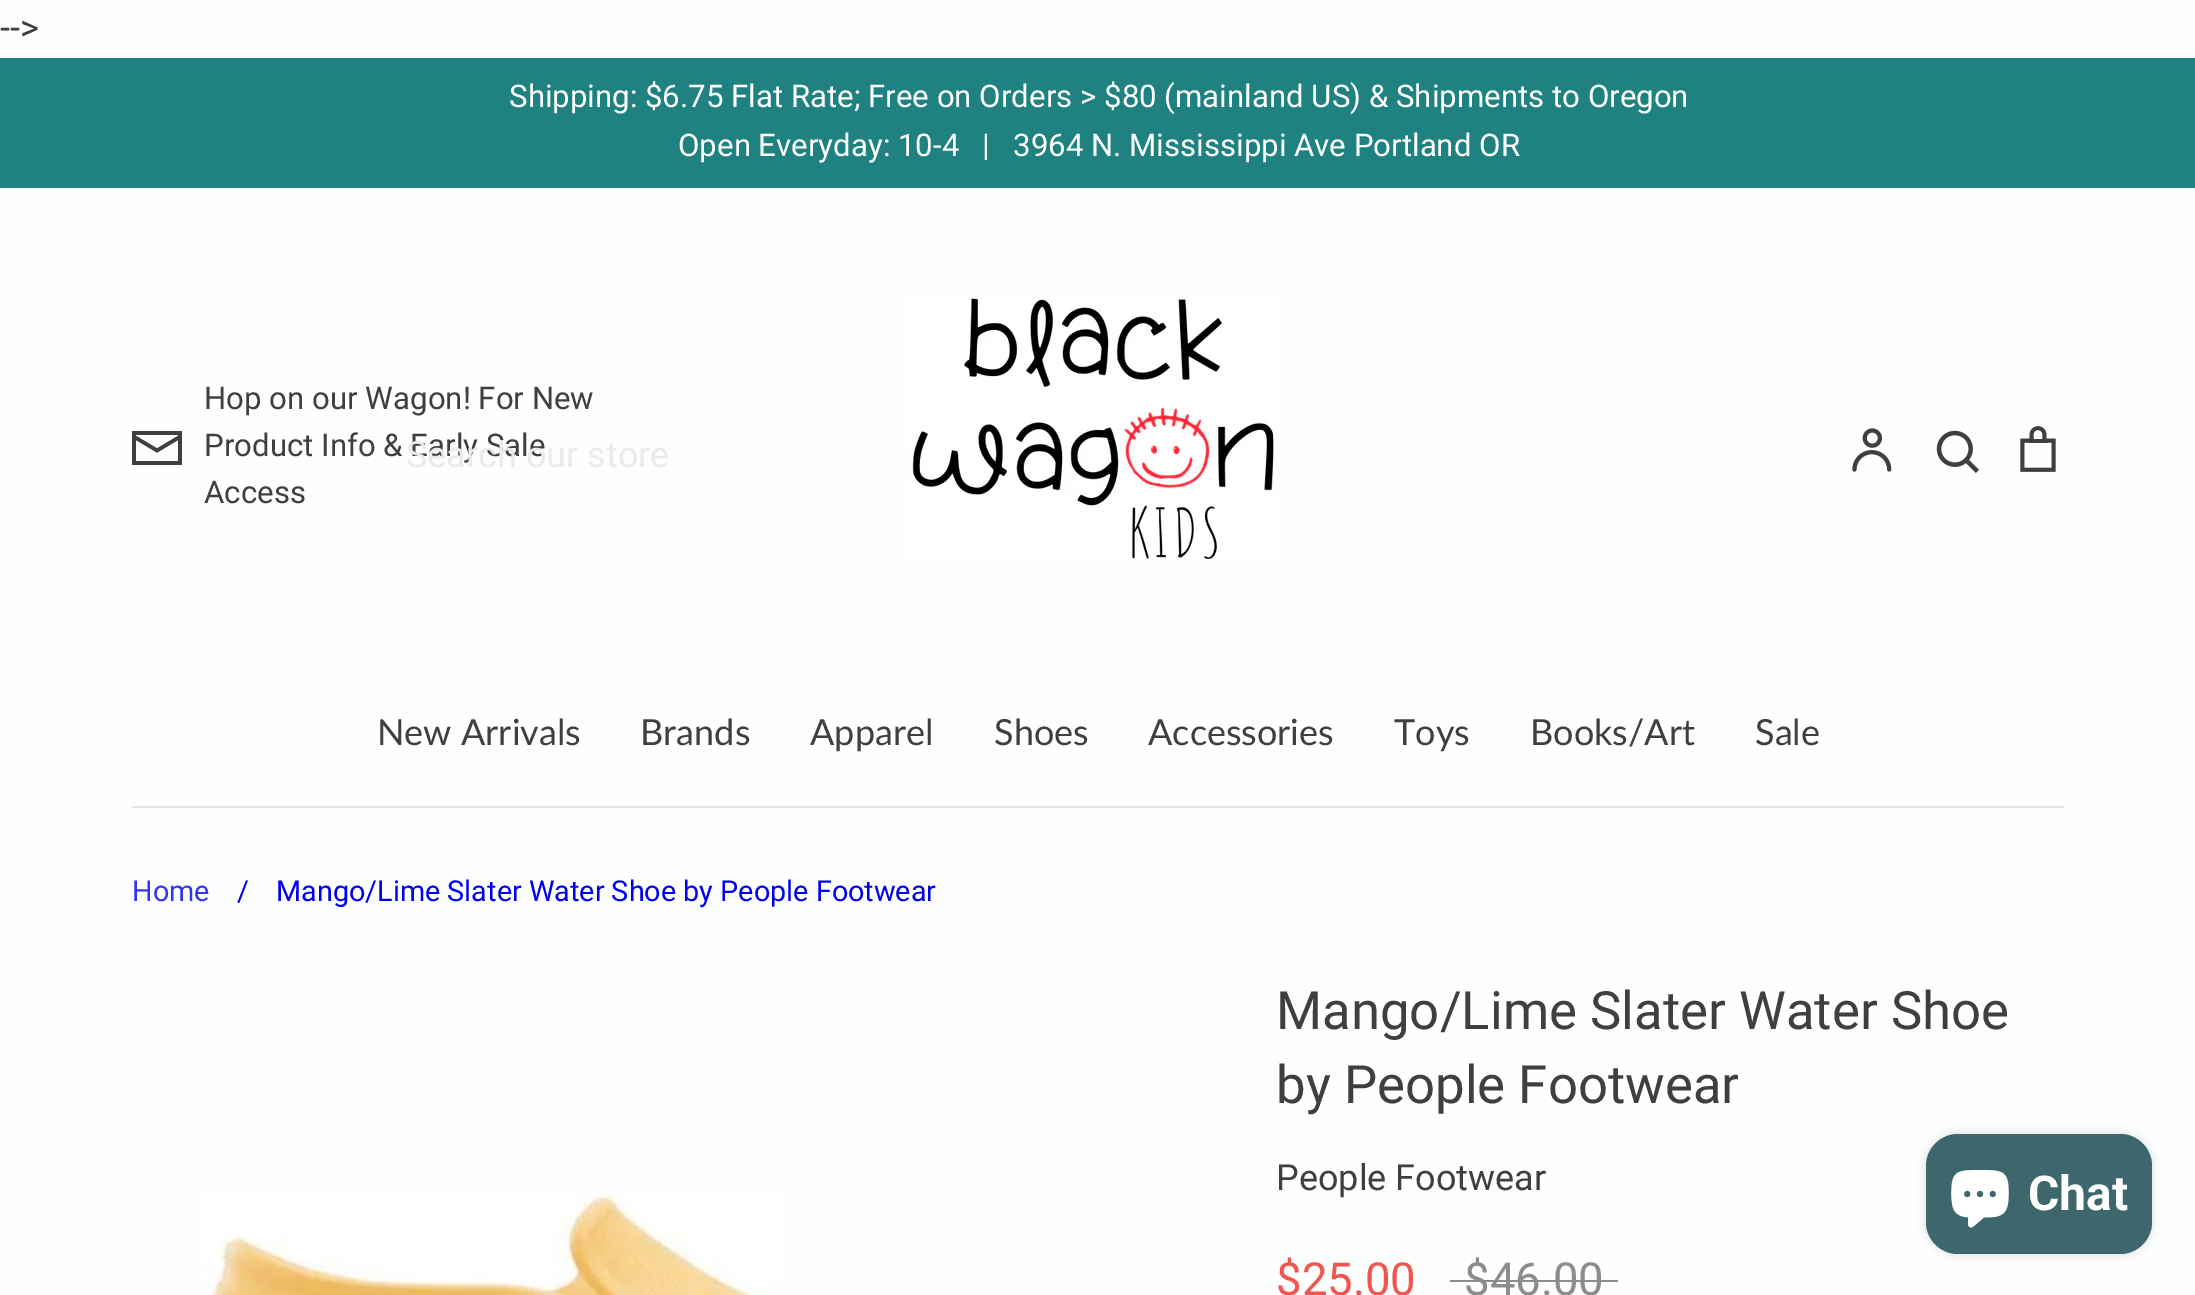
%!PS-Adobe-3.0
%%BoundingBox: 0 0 2195 1295
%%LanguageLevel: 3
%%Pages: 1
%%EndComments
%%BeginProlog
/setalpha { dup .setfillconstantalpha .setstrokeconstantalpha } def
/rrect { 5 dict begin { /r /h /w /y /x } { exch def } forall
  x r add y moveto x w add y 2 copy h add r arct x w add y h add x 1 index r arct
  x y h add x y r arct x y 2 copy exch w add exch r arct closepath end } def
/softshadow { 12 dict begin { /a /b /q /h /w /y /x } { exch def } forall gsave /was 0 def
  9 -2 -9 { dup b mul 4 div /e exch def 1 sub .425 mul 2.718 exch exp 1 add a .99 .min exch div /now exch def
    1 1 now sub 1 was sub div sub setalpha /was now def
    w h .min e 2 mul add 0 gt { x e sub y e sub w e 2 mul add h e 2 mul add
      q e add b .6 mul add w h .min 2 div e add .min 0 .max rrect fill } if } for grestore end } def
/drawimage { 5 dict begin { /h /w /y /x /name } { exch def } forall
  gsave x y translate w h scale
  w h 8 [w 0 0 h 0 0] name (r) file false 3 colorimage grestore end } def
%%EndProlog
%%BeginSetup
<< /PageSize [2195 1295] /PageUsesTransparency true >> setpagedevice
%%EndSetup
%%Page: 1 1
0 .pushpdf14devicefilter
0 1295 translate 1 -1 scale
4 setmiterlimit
0.992 1 1 setrgbcolor
0 0 2195 1295 rectfill
0.125 0.506 0.506 setrgbcolor
0 58 2195 130 rectfill
(images/1.raw) 132 431 50 34 drawimage
(images/2.raw) 910 297 364 263 drawimage
(images/3.raw) 1936 430 43 43 drawimage
(images/4.raw) 1852 428 40 44 drawimage
(images/5.raw) 2020 426 36 46 drawimage
0.882 0.886 0.886 setrgbcolor
132 806 1932 2 rectfill
(images/6.raw) 205 1191 574 104 drawimage
0.545 0.549 0.549 setrgbcolor
1450 1280 168 2 rectfill
0 setgray
1926 1134 226 120 32 5 0.15 softshadow
0.239 0.4 0.427 setrgbcolor
1926 1134 226 120 32 rrect fill
(images/7.raw) 1951 1170 58 58 drawimage
/Roboto-Regular [36 0 0 -36 0 0] selectfont
0.247 setgray
0 40 moveto (-->) show
/Roboto-Regular [31.2 0 0 -31.2 0 0] selectfont
0.992 1 1 setrgbcolor
509 107 moveto (Shipping: $6.75 Flat Rate; Free on Orders > $80 \(mainland US\) & Shipments to Oregon) show
678 156 moveto (Open Everyday: 10-4   |   3964 N. Mississippi Ave Portland OR) show
0.247 setgray
204 409 moveto (Hop on our Wagon! For New) show
204 456 moveto (Product Info & Early Sale) show
204 503 moveto (Access) show
/Roboto-Regular [36 0 0 -36 0 0] selectfont
0.914 0.922 0.922 setrgbcolor
406 467 moveto (Search our store) show
/Lato-Regular [36 0 0 -36 0 0] selectfont
0.247 setgray
377 745 moveto (New Arrivals) show
640 745 moveto (Brands) show
810 745 moveto (Apparel) show
994 745 moveto (Shoes) show
1148 745 moveto (Accessories) show
1394 745 moveto (Toys) show
1530 745 moveto (Books/Art) show
1755 745 moveto (Sale) show
/Roboto-Regular [28.8 0 0 -28.8 0 0] selectfont
0.2 0.2 0.945 setrgbcolor
132 901 moveto (Home) show
0 0 0.933 setrgbcolor
237 901 moveto (/) show
276 901 moveto (Mango/Lime Slater Water Shoe by People Footwear) show
/Roboto-Regular [52.75 0 0 -52.75 0 0] selectfont
0.247 setgray
1276 1029 moveto (Mango/Lime Slater Water Shoe) show
1276 1103 moveto (by People Footwear) show
/Roboto-Regular [36 0 0 -36 0 0] selectfont
1276 1190 moveto (People Footwear) show
/Roboto-Regular [45.5 0 0 -45.5 0 0] selectfont
0.941 0.337 0.31 setrgbcolor
1276 1295 moveto ($25.00) show
0.545 0.549 0.549 setrgbcolor
1464 1295 moveto ($46.00) show
/Roboto-Bold [48 0 0 -48 0 0] selectfont
0.992 1 1 setrgbcolor
2028 1210 moveto (Chat) show
.poppdf14devicefilter showpage
%%EOF
